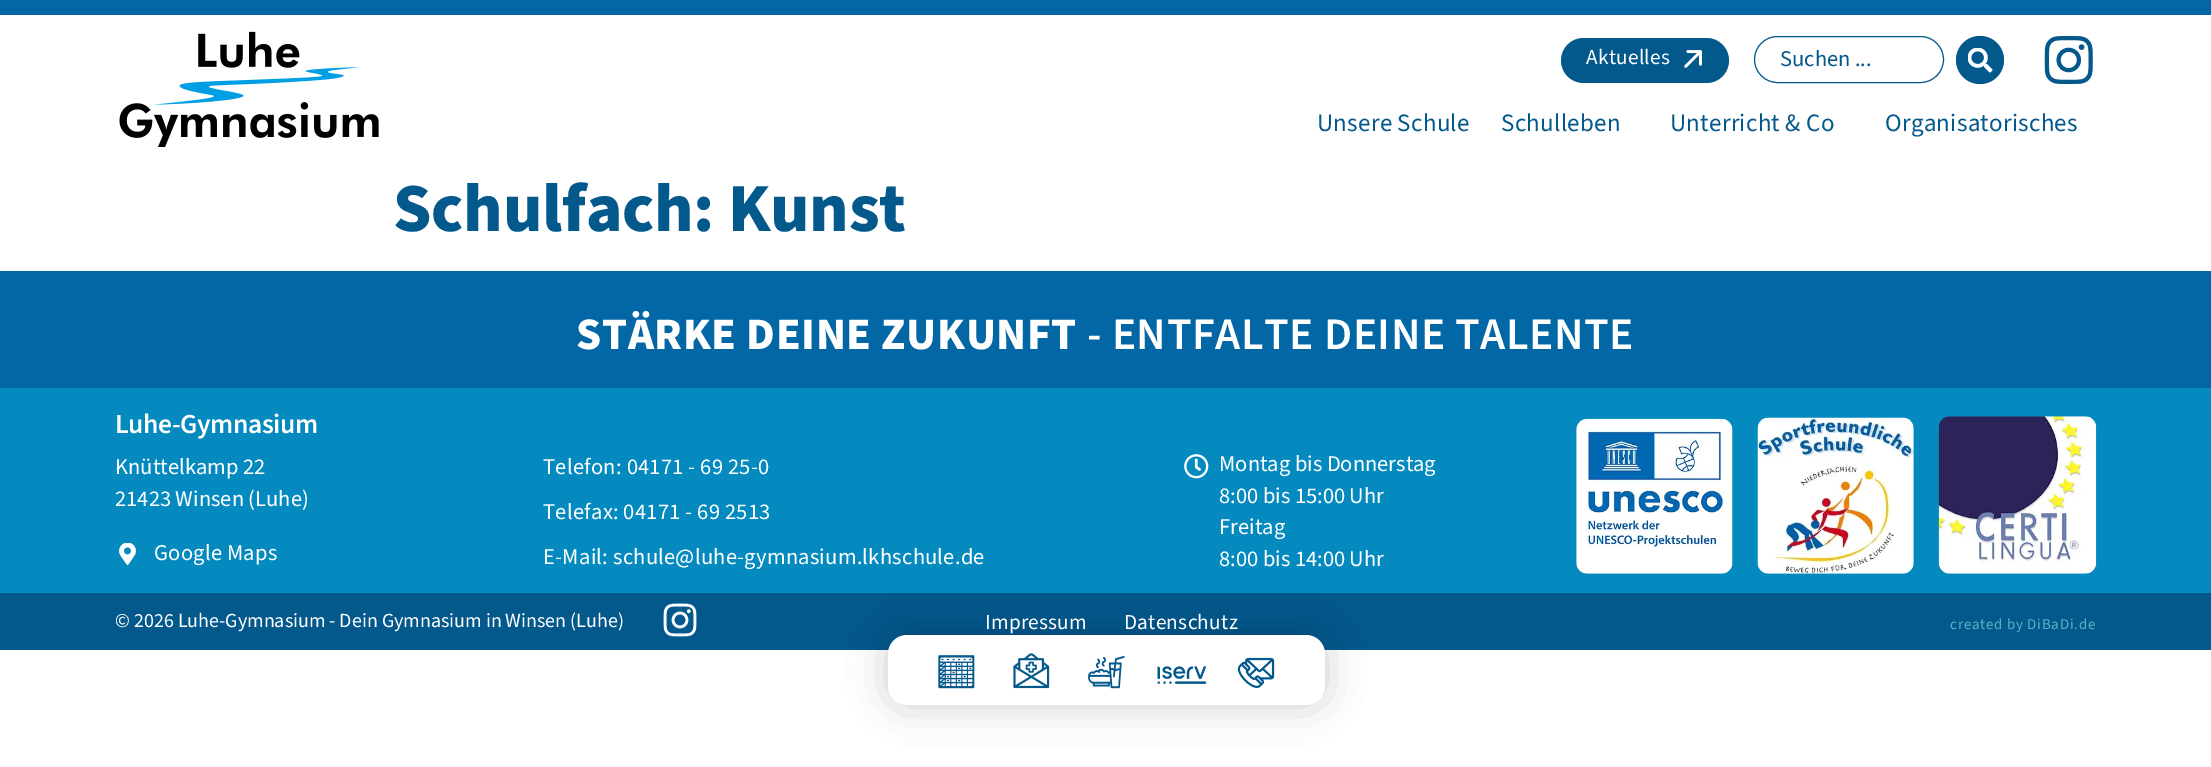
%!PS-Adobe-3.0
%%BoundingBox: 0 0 2211 767
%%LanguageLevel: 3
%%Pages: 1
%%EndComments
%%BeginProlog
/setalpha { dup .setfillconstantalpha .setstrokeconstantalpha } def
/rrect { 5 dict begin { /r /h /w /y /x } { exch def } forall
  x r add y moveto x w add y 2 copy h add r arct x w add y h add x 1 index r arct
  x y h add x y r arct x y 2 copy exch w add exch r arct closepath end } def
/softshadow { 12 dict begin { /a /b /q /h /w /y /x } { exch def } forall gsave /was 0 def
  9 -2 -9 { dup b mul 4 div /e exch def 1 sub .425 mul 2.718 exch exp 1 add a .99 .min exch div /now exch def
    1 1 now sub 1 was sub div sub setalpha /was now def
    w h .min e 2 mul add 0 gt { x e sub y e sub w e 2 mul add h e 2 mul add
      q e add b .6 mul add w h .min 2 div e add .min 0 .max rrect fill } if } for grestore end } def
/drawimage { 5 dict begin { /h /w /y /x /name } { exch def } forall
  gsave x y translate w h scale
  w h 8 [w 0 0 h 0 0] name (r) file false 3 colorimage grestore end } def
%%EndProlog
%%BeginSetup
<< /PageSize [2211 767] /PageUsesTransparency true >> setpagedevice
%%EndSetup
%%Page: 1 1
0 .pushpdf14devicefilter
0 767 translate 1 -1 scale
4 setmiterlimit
1 setgray
0 0 2211 767 rectfill
0.012 0.404 0.651 setrgbcolor
0 0 2211 15 rectfill
(images/1.raw) 119 31 260 116 drawimage
0.012 0.345 0.549 setrgbcolor
1561 38 168 45 22.5 rrect fill
(images/2.raw) 1684 50 18 18 drawimage
1754.5 36.5 189 46 23 rrect stroke
newpath 1980 60 24 0 360 arc closepath fill
(images/3.raw) 1968 48 25 25 drawimage
(images/4.raw) 2044 35 49 50 drawimage
0.012 0.404 0.651 setrgbcolor
0 271 2211 117 rectfill
0.016 0.541 0.749 setrgbcolor
0 388 2211 205 rectfill
(images/5.raw) 119 543 17 22 drawimage
(images/6.raw) 1184 454 25 25 drawimage
(images/7.raw) 1576 418 157 156 drawimage
(images/8.raw) 1757 417 157 157 drawimage
(images/9.raw) 1938 416 159 158 drawimage
0.012 0.345 0.549 setrgbcolor
0 593 2211 57 rectfill
0 setgray
888 635 437 70 19 19 0.2 softshadow
1 setgray
888 635 437 70 19 rrect fill
(images/10.raw) 938 655 37 34 drawimage
(images/11.raw) 1013 653 37 36 drawimage
(images/12.raw) 1088 656 37 33 drawimage
(images/13.raw) 1157 666 50 18 drawimage
(images/14.raw) 1237 657 38 32 drawimage
(images/15.raw) 663 603 34 34 drawimage
/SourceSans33-ExtraLight [21.25 0 0 -21.25 0 0] selectfont
1586 64 moveto 0.25 0 (Aktuelles) ashow
/SourceSans33-ExtraLight [22.5 0 0 -22.5 0 0] selectfont
0.012 0.345 0.549 setrgbcolor
1780 66 moveto (Suchen ...) show
/SourceSans33-ExtraLight [25 0 0 -25 0 0] selectfont
1317 131 moveto 0.25 0 (Unsere Schule) ashow
1501 131 moveto 0.25 0 (Schulleben) ashow
1670 131 moveto 0.25 0 (Unterricht & Co) ashow
1885 131 moveto 0.25 0 (Organisatorisches) ashow
/SourceSans3-ExtraLight [68.75 0 0 -68.75 0 0] selectfont
393 231 moveto -0.25 0 (Schulfach: Kunst) ashow
/SourceSans3-ExtraLight [45 0 0 -45 0 0] selectfont
1 setgray
576 349 moveto 0.6 0 (STÄRKE DEINE ZUKUNFT) ashow
/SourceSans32-ExtraLight [45 0 0 -45 0 0] selectfont
1087 349 moveto 0.6 0 (- ENTFALTE DEINE TALENTE) ashow
/SourceSans32-ExtraLight [27.5 0 0 -27.5 0 0] selectfont
115 433 moveto -0.4 0 (Luhe-Gymnasium) ashow
/SourceSans33-ExtraLight [22.5 0 0 -22.5 0 0] selectfont
115 474 moveto (Knüttelkamp 22) show
115 506 moveto (21423 Winsen \(Luhe\)) show
154 560 moveto 0.25 0 (Google Maps) ashow
543 474 moveto 0.25 0 (Telefon: 04171 - 69 25-0) ashow
543 519 moveto 0.25 0 (Telefax: 04171 - 69 2513) ashow
543 564 moveto 0.25 0 (E-Mail: schule@luhe-gymnasium.lkhschule.de) ashow
1219 471 moveto (Montag bis Donnerstag) show
1219 503 moveto (8:00 bis 15:00 Uhr) show
1219 534 moveto (Freitag) show
1219 566 moveto (8:00 bis 14:00 Uhr) show
/SourceSans33-ExtraLight [20 0 0 -20 0 0] selectfont
115 627 moveto (© 2026 Luhe-Gymnasium - Dein Gymnasium in Winsen \(Luhe\)) show
/SourceSans33-ExtraLight [21.25 0 0 -21.25 0 0] selectfont
985 629 moveto 0.25 0 (Impressum) ashow
1124 629 moveto 0.25 0 (Datenschutz) ashow
/SourceSans33-ExtraLight [15 0 0 -15 0 0] selectfont
0.357 0.698 0.769 setrgbcolor
1950 629 moveto 0.75 0 (created by DiBaDi.de) ashow
.poppdf14devicefilter showpage
%%EOF
